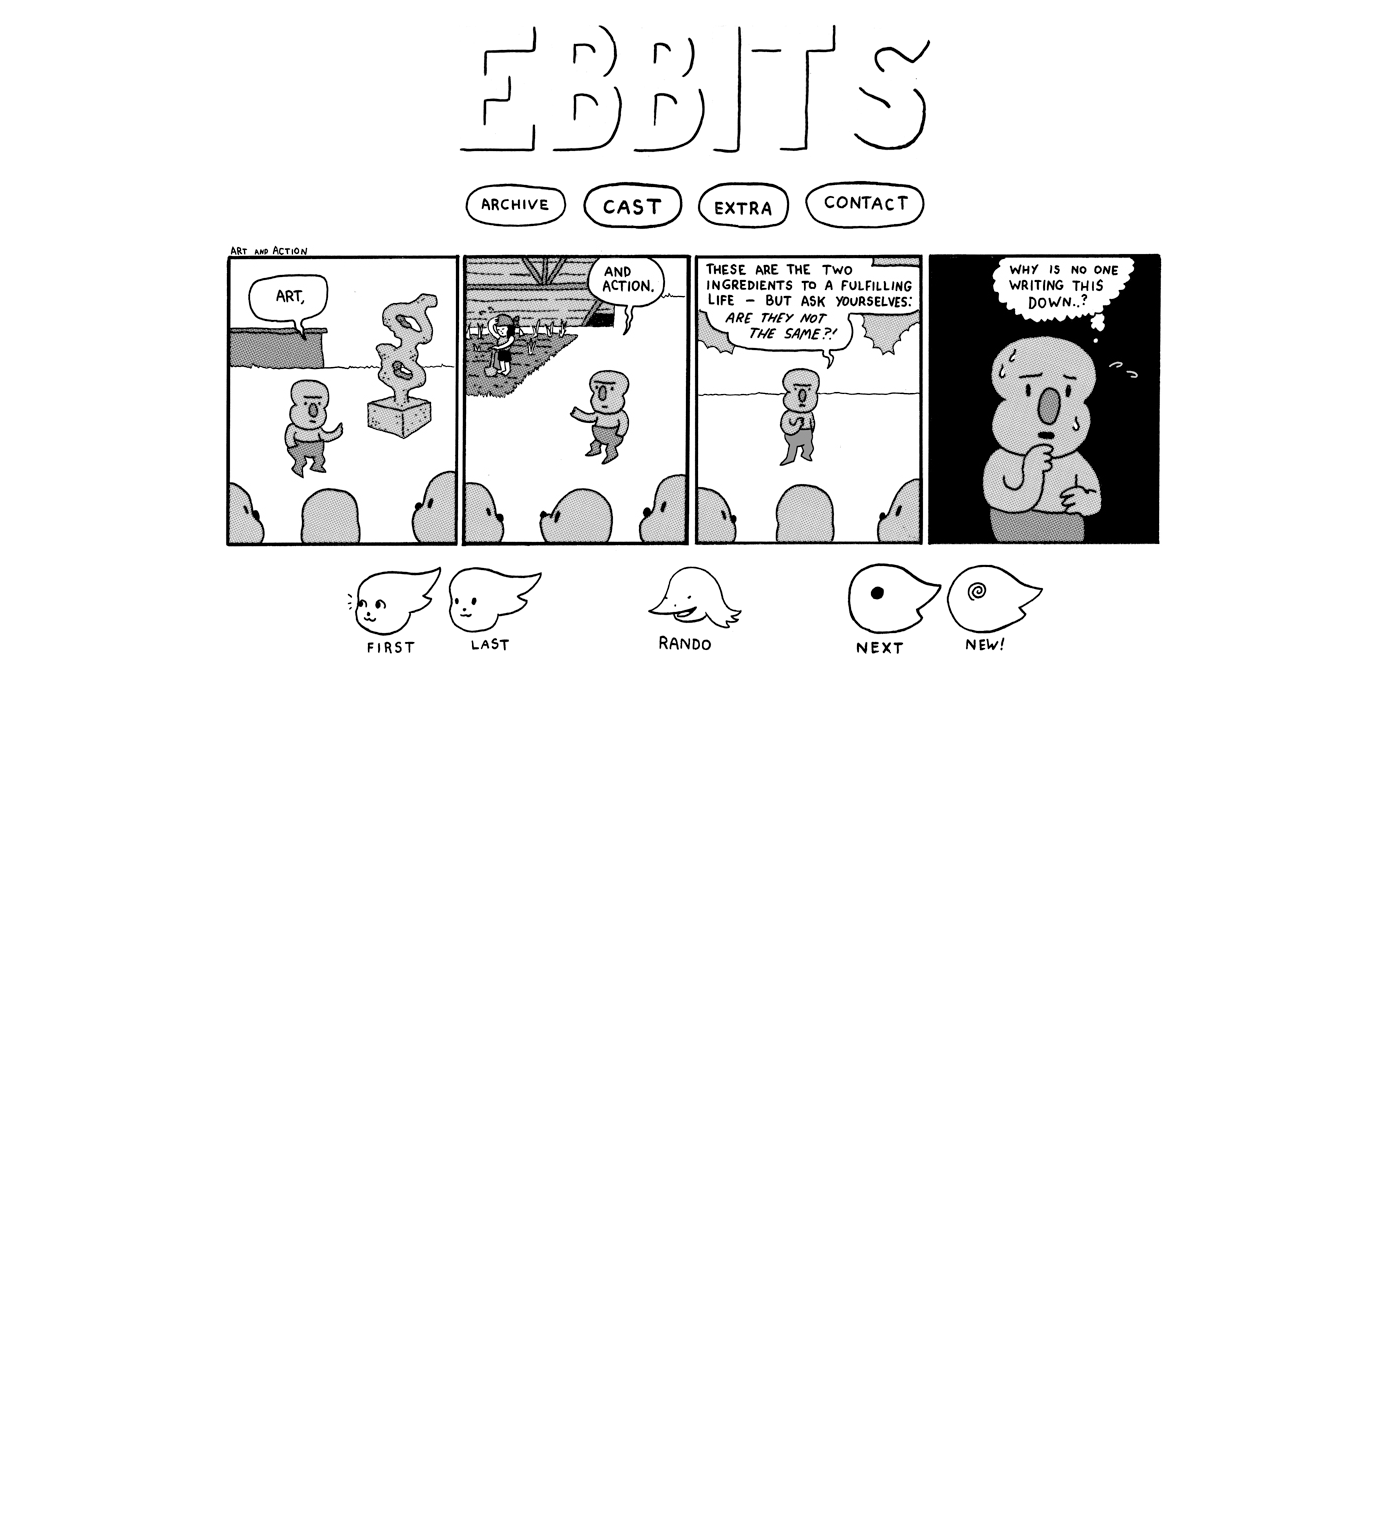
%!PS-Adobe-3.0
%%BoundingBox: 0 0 1388 1538
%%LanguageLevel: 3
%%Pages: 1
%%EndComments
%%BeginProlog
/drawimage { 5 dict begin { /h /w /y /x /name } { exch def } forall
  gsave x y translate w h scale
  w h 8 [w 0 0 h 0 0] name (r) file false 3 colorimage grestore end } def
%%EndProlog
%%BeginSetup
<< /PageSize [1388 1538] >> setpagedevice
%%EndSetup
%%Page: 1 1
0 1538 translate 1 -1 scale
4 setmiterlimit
1 setgray
0 0 1388 1538 rectfill
(images/1.raw) 459 24 472 135 drawimage
(images/2.raw) 465 183 102 44 drawimage
(images/3.raw) 583 181 100 49 drawimage
(images/4.raw) 697 181 93 48 drawimage
(images/5.raw) 805 180 120 49 drawimage
(images/6.raw) 225 245 937 306 drawimage
(images/7.raw) 347 566 95 88 drawimage
(images/8.raw) 448 567 94 84 drawimage
(images/9.raw) 648 566 94 85 drawimage
(images/10.raw) 847 563 95 91 drawimage
(images/11.raw) 946 564 98 87 drawimage
showpage
%%EOF
